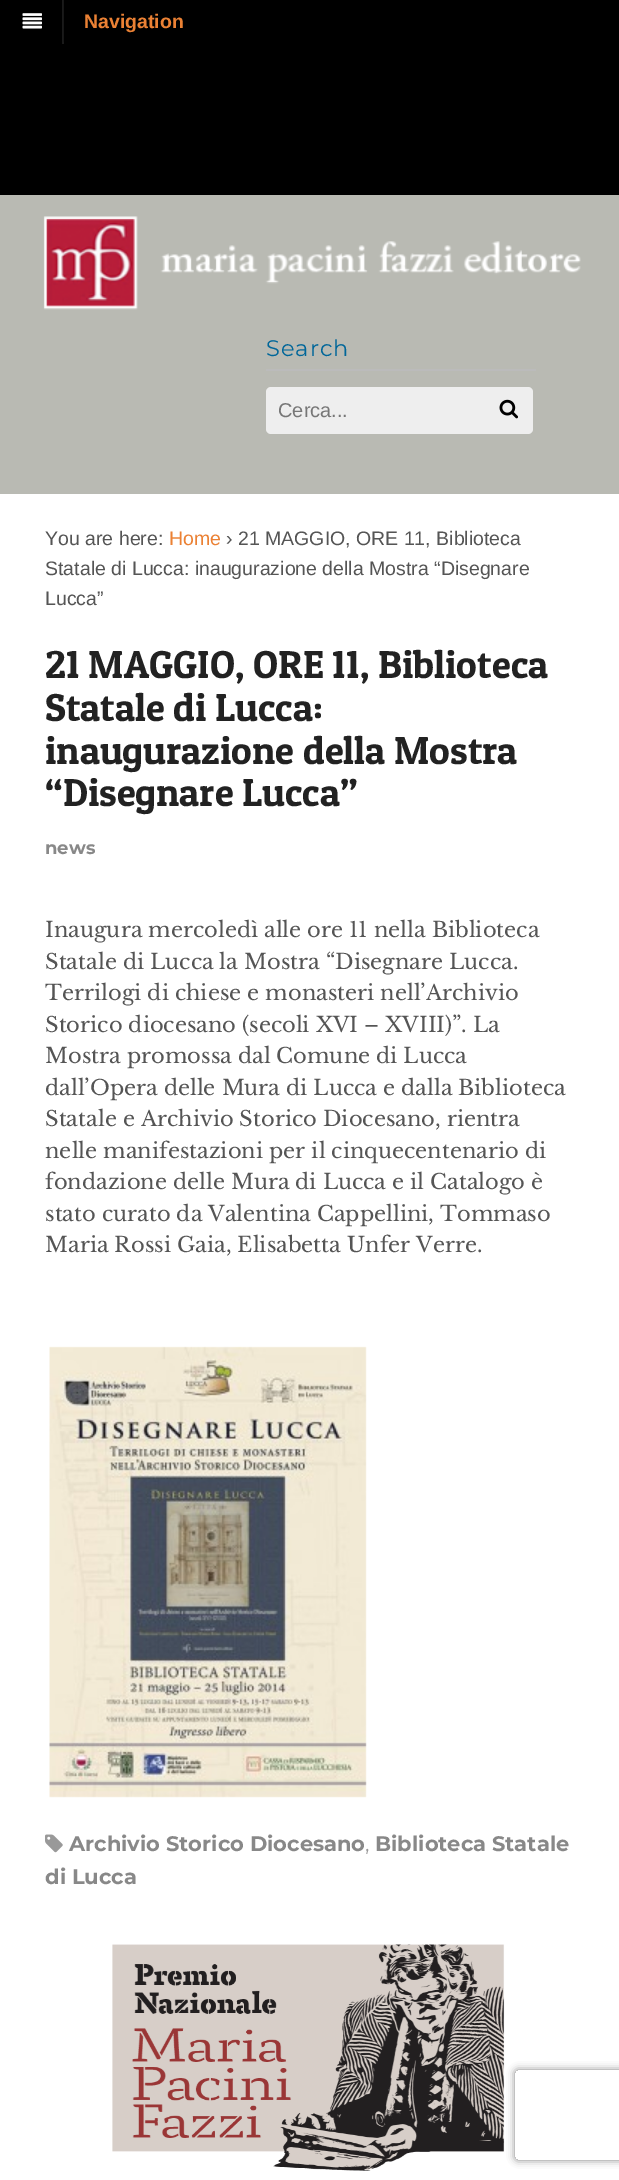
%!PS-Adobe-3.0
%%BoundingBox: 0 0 619 2180
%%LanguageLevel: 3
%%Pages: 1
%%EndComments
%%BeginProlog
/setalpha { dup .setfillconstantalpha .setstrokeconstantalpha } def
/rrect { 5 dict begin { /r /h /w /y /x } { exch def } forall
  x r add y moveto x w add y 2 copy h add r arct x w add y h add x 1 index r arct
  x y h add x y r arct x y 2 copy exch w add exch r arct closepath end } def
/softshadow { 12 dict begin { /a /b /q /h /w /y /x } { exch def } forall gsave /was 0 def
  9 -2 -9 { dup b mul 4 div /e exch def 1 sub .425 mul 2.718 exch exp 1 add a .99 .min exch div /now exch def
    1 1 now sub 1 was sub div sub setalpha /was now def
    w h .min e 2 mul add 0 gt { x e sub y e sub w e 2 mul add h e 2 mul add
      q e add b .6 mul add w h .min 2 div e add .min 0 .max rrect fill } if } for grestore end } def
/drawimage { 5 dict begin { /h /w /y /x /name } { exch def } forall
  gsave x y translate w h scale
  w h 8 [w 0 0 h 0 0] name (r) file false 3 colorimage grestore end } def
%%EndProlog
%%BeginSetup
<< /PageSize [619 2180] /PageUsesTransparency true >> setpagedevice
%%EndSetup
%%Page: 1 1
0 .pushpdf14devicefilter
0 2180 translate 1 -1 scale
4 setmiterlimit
0 setgray
0 0 619 2180 rectfill
0.102 setgray
62 0 2 44 rectfill
0.09 setgray
63 0 1 42 rectfill
(images/1.raw) 22 13 20 16 drawimage
0.725 0.729 0.702 setrgbcolor
0 195 619 299 rectfill
(images/2.raw) 43 216 538 94 drawimage
0.733 setgray
266 369 270 2 rectfill
0.933 setgray
266 387 267 47 5 rrect fill
(images/3.raw) 499 399 19 20 drawimage
1 setgray
0 494 619 1686 rectfill
(images/4.raw) 49 1346 318 452 drawimage
(images/5.raw) 45 1834 18 19 drawimage
(images/6.raw) 112 1944 393 227 drawimage
gsave
newpath 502 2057 moveto 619 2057 lineto 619 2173 lineto 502 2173 lineto closepath 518 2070 moveto 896 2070 lineto 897.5 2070 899 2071.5 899 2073 curveto 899 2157 lineto 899 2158.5 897.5 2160 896 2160 curveto 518 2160 lineto 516.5 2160 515 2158.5 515 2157 curveto 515 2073 lineto 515 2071.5 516.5 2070 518 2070 curveto closepath eoclip newpath
0.502 setgray
515 2070 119 90 3 4 1 softshadow
grestore
/LiberationSans-Bold [19.5 0 0 -19.5 0 0] selectfont
0.922 0.506 0.204 setrgbcolor
84 28 moveto (Navigation) show
/Montserrat-Regular [22.5 0 0 -22.5 0 0] selectfont
0 0.4 0.6 setrgbcolor
266 356 moveto 1 0 (Search) ashow
/LiberationSans-Regular [20 0 0 -20 0 0] selectfont
0.467 setgray
278 417 moveto (Cerca...) show
/LiberationSans-Regular [19.5 0 0 -19.5 0 0] selectfont
0.333 setgray
45 545 moveto (You are here:) show
0.922 0.506 0.204 setrgbcolor
169 545 moveto (Home) show
0.333 setgray
226 545 moveto (› 21 MAGGIO, ORE 11, Biblioteca) show
45 575 moveto (Statale di Lucca: inaugurazione della Mostra “Disegnare) show
45 605 moveto (Lucca”) show
/PatuaOne-Regular [39 0 0 -39 0 0] selectfont
0.133 setgray
45 678 moveto (21 MAGGIO, ORE 11, Biblioteca) show
45 721 moveto (Statale di Lucca:) show
45 764 moveto (inaugurazione della Mostra) show
45 806 moveto (“Disegnare Lucca”) show
/Montserrat-Bold [18 0 0 -18 0 0] selectfont
0.533 setgray
45 854 moveto (news) show
/LibreBaskerville-Regular [21 0 0 -21 0 0] selectfont
0.333 setgray
45 937 moveto (Inaugura mercoledì alle ore 11 nella Biblioteca) show
45 969 moveto (Statale di Lucca la Mostra “Disegnare Lucca.) show
45 1000 moveto (Terrilogi di chiese e monasteri nell’Archivio) show
45 1032 moveto (Storico diocesano \(secoli XVI – XVIII\)”. La) show
45 1063 moveto (Mostra promossa dal Comune di Lucca) show
45 1095 moveto (dall’Opera delle Mura di Lucca e dalla Biblioteca) show
45 1126 moveto (Statale e Archivio Storico Diocesano, rientra) show
45 1158 moveto (nelle manifestazioni per il cinquecentenario di) show
45 1189 moveto (fondazione delle Mura di Lucca e il Catalogo è) show
45 1221 moveto (stato curato da Valentina Cappellini, Tommaso) show
45 1252 moveto (Maria Rossi Gaia, Elisabetta Unfer Verre.) show
/Montserrat-Bold [21 0 0 -21 0 0] selectfont
0.533 setgray
69 1851 moveto (Archivio Storico Diocesano) show
/Montserrat-Regular [21 0 0 -21 0 0] selectfont
0.6 setgray
365 1851 moveto (,) show
/Montserrat-Bold [21 0 0 -21 0 0] selectfont
0.533 setgray
375 1851 moveto (Biblioteca Statale) show
45 1884 moveto (di Lucca) show
.poppdf14devicefilter showpage
%%EOF
